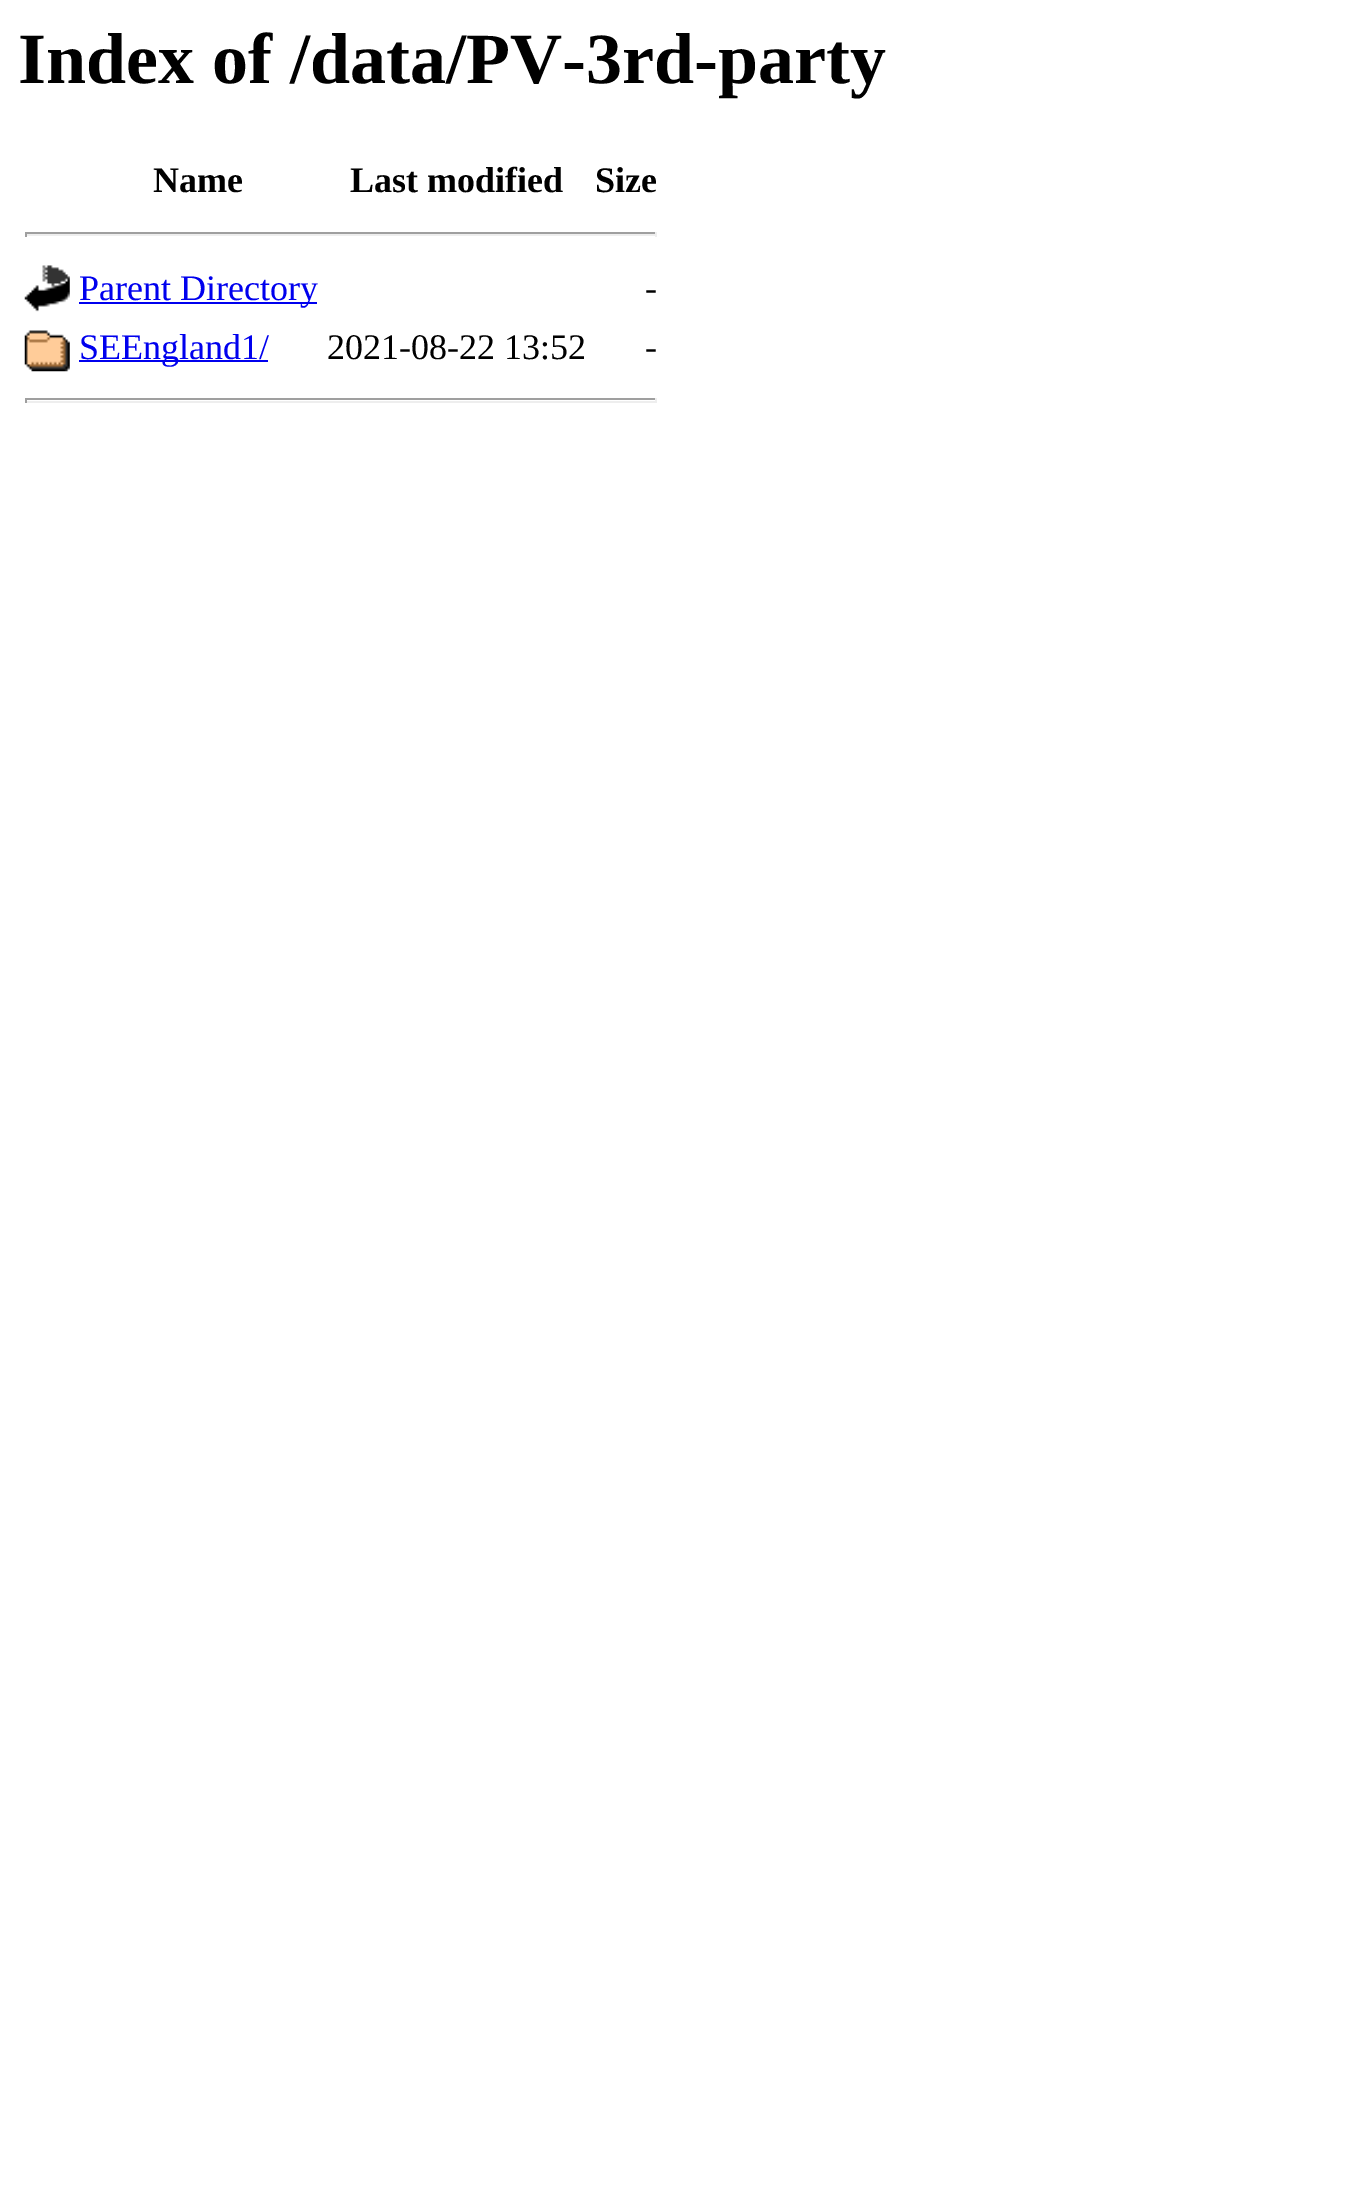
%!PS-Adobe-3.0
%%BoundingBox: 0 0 1354 2189
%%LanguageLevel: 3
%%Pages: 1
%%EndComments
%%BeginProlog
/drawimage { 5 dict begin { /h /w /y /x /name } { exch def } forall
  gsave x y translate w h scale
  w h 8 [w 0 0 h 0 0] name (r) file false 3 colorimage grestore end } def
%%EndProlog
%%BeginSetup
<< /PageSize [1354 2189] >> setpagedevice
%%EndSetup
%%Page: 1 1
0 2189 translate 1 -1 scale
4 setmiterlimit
1 setgray
0 0 1354 2189 rectfill
0.624 setgray
25 232 632 2 rectfill
0.933 setgray
655 232 2 5 rectfill
25 234 632 2 rectfill
0.624 setgray
25 232 2 5 rectfill
(images/1.raw) 24 265 46 47 drawimage
0 0 0.933 setrgbcolor
79 302 238 2 rectfill
(images/2.raw) 24 330 46 42 drawimage
79 360 189 2 rectfill
0.624 setgray
25 398 632 2 rectfill
0.933 setgray
655 398 2 5 rectfill
25 401 632 2 rectfill
0.624 setgray
25 398 2 5 rectfill
/LiberationSerif-Bold [72 0 0 -72 0 0] selectfont
0 setgray
18 83 moveto (Index of /data/PV-3rd-party) show
/LiberationSerif-Bold [36 0 0 -36 0 0] selectfont
153 192 moveto (Name) show
350 192 moveto (Last modified) show
595 192 moveto (Size) show
/LiberationSerif-Regular [36 0 0 -36 0 0] selectfont
0 0 0.933 setrgbcolor
79 300 moveto (Parent Directory) show
0 setgray
645 300 moveto (-) show
0 0 0.933 setrgbcolor
79 359 moveto (SEEngland1/) show
0 setgray
327 359 moveto (2021-08-22 13:52) show
645 359 moveto (-) show
showpage
%%EOF
